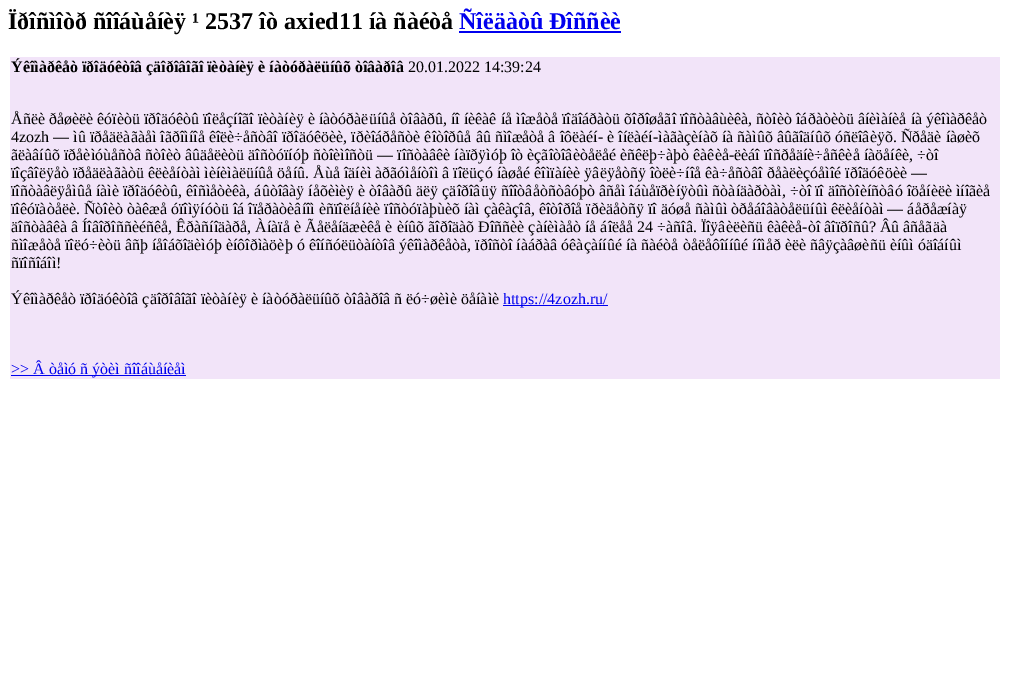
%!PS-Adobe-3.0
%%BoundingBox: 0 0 1010 688
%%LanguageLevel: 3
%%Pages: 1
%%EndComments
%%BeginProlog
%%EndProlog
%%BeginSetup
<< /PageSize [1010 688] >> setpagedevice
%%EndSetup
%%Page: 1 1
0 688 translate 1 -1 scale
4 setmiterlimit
1 setgray
0 0 1010 688 rectfill
0 0 0.933 setrgbcolor
459 31 162 2 rectfill
0.949 0.894 0.976 setrgbcolor
10 57 990 322 rectfill
0 0 0.933 setrgbcolor
503 305 105 1 rectfill
11 375 175 1 rectfill
/LiberationSerif-Bold [24 0 0 -24 0 0] selectfont
0 setgray
8 29 moveto (Ïðîñìîòð ñîîáùåíèÿ ¹ 2537 îò axied11 íà ñàéòå) show
0 0 0.933 setrgbcolor
459 29 moveto (Ñîëäàòû Ðîññèè) show
/LiberationSerif-Bold [16 0 0 -16 0 0] selectfont
0 setgray
11 72 moveto (Ýêîìàðêåò ïðîäóêòîâ çäîðîâîãî ïèòàíèÿ è íàòóðàëüíûõ òîâàðîâ) show
/LiberationSerif-Regular [16 0 0 -16 0 0] selectfont
408 72 moveto (20.01.2022 14:39:24) show
11 124 moveto (Åñëè ðåøèëè êóïèòü ïðîäóêòû ïîëåçíîãî ïèòàíèÿ è íàòóðàëüíûå òîâàðû, íî íèêàê íå ìîæåòå ïîäîáðàòü õîðîøåãî ïîñòàâùèêà, ñòîèò îáðàòèòü âíèìàíèå íà ýêîìàðêåò) show
11 142 moveto (4zozh — ìû ïðåäëàãàåì îãðîìíîå êîëè÷åñòâî ïðîäóêöèè, ïðèîáðåñòè êîòîðûå âû ñìîæåòå â îôëàéí- è îíëàéí-ìàãàçèíàõ íà ñàìûõ âûãîäíûõ óñëîâèÿõ. Ñðåäè íàøèõ) show
11 160 moveto (ãëàâíûõ ïðåèìóùåñòâ ñòîèò âûäåëèòü äîñòóïíóþ ñòîèìîñòü — ïîñòàâêè íàïðÿìóþ îò èçãîòîâèòåëåé èñêëþ÷àþò êàêèå-ëèáî ïîñðåäíè÷åñêèå íàöåíêè, ÷òî) show
11 178 moveto (ïîçâîëÿåò ïðåäëàãàòü êëèåíòàì ìèíèìàëüíûå öåíû. Åùå îäíèì àðãóìåíòîì â ïîëüçó íàøåé êîìïàíèè ÿâëÿåòñÿ îòëè÷íîå êà÷åñòâî ðåàëèçóåìîé ïðîäóêöèè —) show
11 196 moveto (ïîñòàâëÿåìûå íàìè ïðîäóêòû, êîñìåòèêà, áûòîâàÿ íåõèìèÿ è òîâàðû äëÿ çäîðîâüÿ ñîîòâåòñòâóþò âñåì îáùåïðèíÿòûì ñòàíäàðòàì, ÷òî ïî äîñòîèíñòâó îöåíèëè ìíîãèå) show
11 214 moveto (ïîêóïàòåëè. Ñòîèò òàêæå óïîìÿíóòü îá îïåðàòèâíîì èñïîëíåíèè ïîñòóïàþùèõ íàì çàêàçîâ, êîòîðîå ïðèäåòñÿ ïî äóøå ñàìûì òðåáîâàòåëüíûì êëèåíòàì — áåðåæíàÿ) show
11 232 moveto (äîñòàâêà â Íîâîðîññèéñêå, Êðàñíîäàðå, Àíàïå è Ãåëåíäæèêå è èíûõ ãîðîäàõ Ðîññèè çàíèìàåò íå áîëåå 24 ÷àñîâ. Ïîÿâèëèñü êàêèå-òî âîïðîñû? Âû âñåãäà) show
11 250 moveto (ñìîæåòå ïîëó÷èòü âñþ íåîáõîäèìóþ èíôîðìàöèþ ó êîíñóëüòàíòîâ ýêîìàðêåòà, ïðîñòî íàáðàâ óêàçàííûé íà ñàéòå òåëåôîííûé íîìåð èëè ñâÿçàâøèñü èíûì óäîáíûì) show
11 268 moveto (ñïîñîáîì!) show
11 304 moveto (Ýêîìàðêåò ïðîäóêòîâ çäîðîâîãî ïèòàíèÿ è íàòóðàëüíûõ òîâàðîâ ñ ëó÷øèìè öåíàìè) show
0 0 0.933 setrgbcolor
503 304 moveto (https://4zozh.ru/) show
11 374 moveto (>> Â òåìó ñ ýòèì ñîîáùåíèåì) show
showpage
%%EOF
